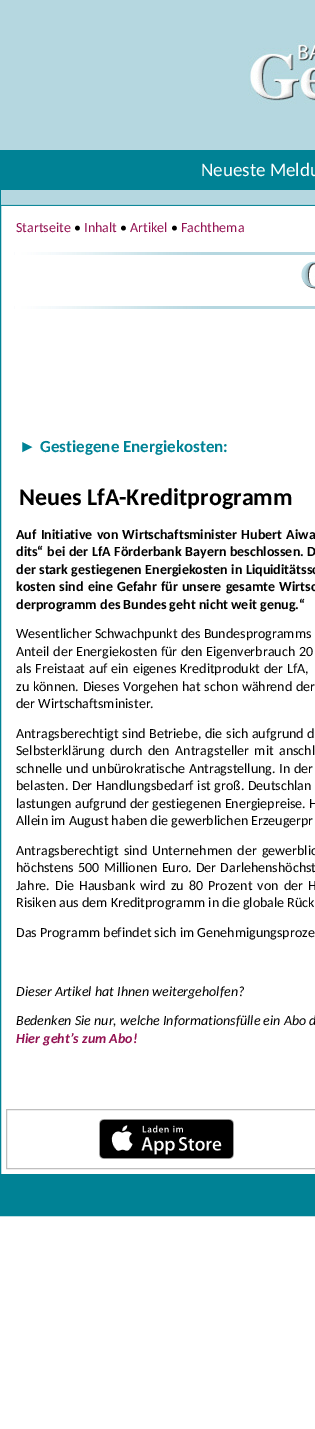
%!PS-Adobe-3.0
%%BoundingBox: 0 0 315 1429
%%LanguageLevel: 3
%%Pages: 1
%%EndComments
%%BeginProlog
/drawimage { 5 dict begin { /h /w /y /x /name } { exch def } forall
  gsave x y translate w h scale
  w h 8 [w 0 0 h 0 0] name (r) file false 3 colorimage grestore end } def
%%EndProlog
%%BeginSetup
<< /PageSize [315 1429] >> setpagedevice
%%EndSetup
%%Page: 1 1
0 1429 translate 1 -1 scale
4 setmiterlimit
1 setgray
0 0 315 1429 rectfill
(images/1.raw) 0 0 315 150 drawimage
0 0.51 0.584 setrgbcolor
0.5 150.5 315 1065 rectstroke
1 151 314 39 rectfill
(images/2.raw) 1 190 314 16 drawimage
(images/3.raw) 14 252 301 3 drawimage
(images/4.raw) 301 261 14 28 drawimage
(images/3.raw) 14 306 301 3 drawimage
0.749 setgray
6.5 1109.5 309 59 rectstroke
(images/5.raw) 99 1119 135 40 drawimage
0 0.51 0.584 setrgbcolor
1 1174 314 41 rectfill
/Carlito-Regular [19 0 0 -19 0 0] selectfont
1 setgray
201 176 moveto (Neueste Meldu) show
/Carlito-Regular [14 0 0 -14 0 0] selectfont
0.576 0.071 0.322 setrgbcolor
16 232 moveto (Startseite) show
0 setgray
74 232 moveto (•) show
0.576 0.071 0.322 setrgbcolor
84 232 moveto (Inhalt) show
0 setgray
120 232 moveto (•) show
0.576 0.071 0.322 setrgbcolor
130 232 moveto (Artikel) show
0 setgray
171 232 moveto (•) show
0.576 0.071 0.322 setrgbcolor
181 232 moveto (Fachthema) show
/LiberationSans-Bold [17 0 0 -17 0 0] selectfont
0 0.51 0.584 setrgbcolor
19 452 moveto (►) show
/Carlito-Bold [17 0 0 -17 0 0] selectfont
40 452 moveto (Gestiegene Energiekosten:) show
/Carlito-Bold [24 0 0 -24 0 0] selectfont
0 setgray
19 505 moveto (Neues LfA-Kreditprogramm) show
/Carlito-Bold [14 0 0 -14 0 0] selectfont
16 539 moveto 1 0 32 (Auf Initiative von Wirtschaftsminister Hubert Aiwa) widthshow
16 556 moveto 0.5 0 32 (dits“ bei der LfA Förderbank Bayern beschlossen. D) widthshow
16 574 moveto 0.25 0 32 (der stark gestiegenen Energiekosten in Liquiditätssc) widthshow
16 591 moveto 1 0 32 (kosten sind eine Gefahr für unsere gesamte Wirtsc) widthshow
16 609 moveto (derprogramm des Bundes geht nicht weit genug.“) show
/Carlito-Regular [14 0 0 -14 0 0] selectfont
16 638 moveto (Wesentlicher Schwachpunkt des Bundesprogramms) show
16 656 moveto 0.5 0 32 (Anteil der Energiekosten für den Eigenverbrauch 20) widthshow
16 673 moveto 0.75 0 32 (als Freistaat auf ein eigenes Kreditprodukt der LfA,) widthshow
16 691 moveto 0.5 0 32 (zu können. Dieses Vorgehen hat schon während der) widthshow
16 708 moveto (der Wirtschaftsminister.) show
16 738 moveto 0.5 0 32 (Antragsberechtigt sind Betriebe, die sich aufgrund d) widthshow
16 755 moveto 2.25 0 32 (Selbsterklärung durch den Antragsteller mit anschl) widthshow
16 773 moveto 0.5 0 32 (schnelle und unbürokratische Antragstellung. In der) widthshow
16 790 moveto 0.5 0 32 (belasten. Der Handlungsbedarf ist groß. Deutschlan) widthshow
16 808 moveto (lastungen aufgrund der gestiegenen Energiepreise. H) show
16 825 moveto (Allein im August haben die gewerblichen Erzeugerpr) show
16 855 moveto 2 0 32 (Antragsberechtigt sind Unternehmen der gewerblic) widthshow
16 872 moveto 1 0 32 (höchstens 500 Millionen Euro. Der Darlehenshöchst) widthshow
16 890 moveto 2 0 32 (Jahre. Die Hausbank wird zu 80 Prozent von der H) widthshow
16 907 moveto (Risiken aus dem Kreditprogramm in die globale Rück) show
16 937 moveto (Das Programm befindet sich im Genehmigungsproze) show
/Carlito-Italic [14 0 0 -14 0 0] selectfont
16 996 moveto (Dieser Artikel hat Ihnen weitergeholfen?) show
16 1025 moveto (Bedenken Sie nur, welche Informationsfülle ein Abo d) show
/Carlito-BoldItalic [14 0 0 -14 0 0] selectfont
0.576 0.071 0.322 setrgbcolor
16 1043 moveto (Hier geht’s zum Abo!) show
showpage
%%EOF
